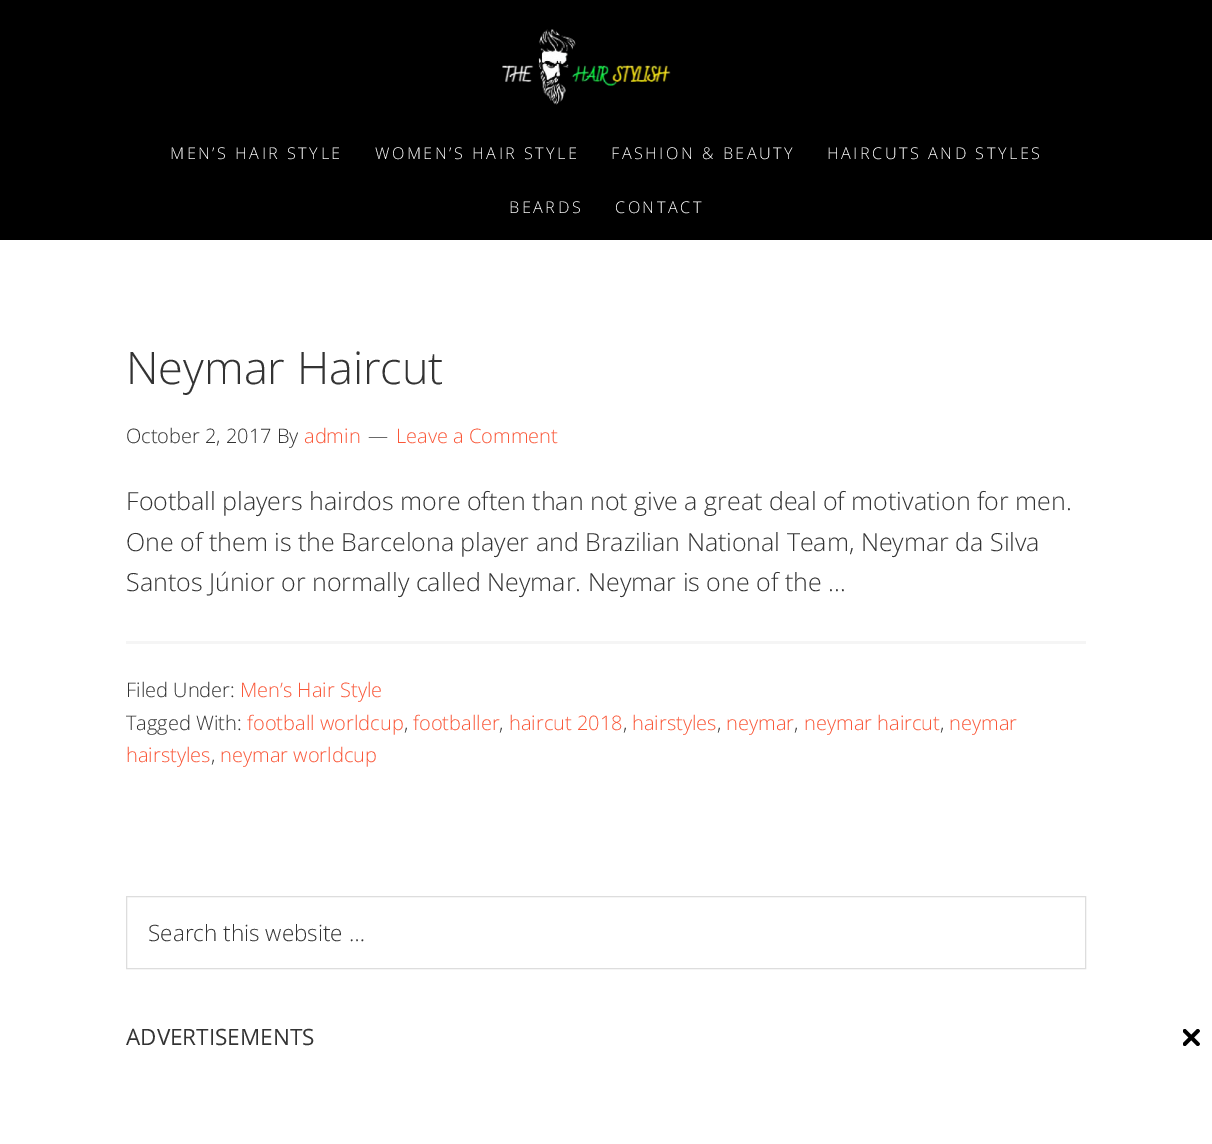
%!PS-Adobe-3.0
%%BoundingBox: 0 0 1212 1144
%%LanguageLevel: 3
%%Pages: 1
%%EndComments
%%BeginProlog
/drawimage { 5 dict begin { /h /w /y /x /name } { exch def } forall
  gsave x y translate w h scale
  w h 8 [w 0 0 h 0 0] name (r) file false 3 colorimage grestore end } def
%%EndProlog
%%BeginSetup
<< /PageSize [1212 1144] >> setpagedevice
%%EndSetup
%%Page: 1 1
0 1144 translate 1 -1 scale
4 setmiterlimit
1 setgray
0 0 1212 1144 rectfill
0 setgray
0 0 1212 240 rectfill
(images/1.raw) 502 29 169 76 drawimage
0.961 setgray
126 641 960 3 rectfill
0.867 setgray
126.5 896.5 959 72 rectstroke
(images/2.raw) 1183 1029 17 17 drawimage
/OpenSans-Light [16.25 0 0 -16.25 0 0] selectfont
1 setgray
170 159 moveto 2.5 0 (MEN’S HAIR STYLE) ashow
375 159 moveto 2.5 0 (WOMEN’S HAIR STYLE) ashow
611 159 moveto 2.5 0 (FASHION & BEAUTY) ashow
827 159 moveto 2.5 0 (HAIRCUTS AND STYLES) ashow
509 213 moveto 2.5 0 (BEARDS) ashow
615 213 moveto 2.5 0 (CONTACT) ashow
/OpenSans-Light [45 0 0 -45 0 0] selectfont
0.2 setgray
126 384 moveto (Neymar Haircut) show
/OpenSans-Light [20 0 0 -20 0 0] selectfont
126 443 moveto (October 2, 2017 By) show
0.98 0.341 0.22 setrgbcolor
304 443 moveto (admin) show
0.2 setgray
368 443 moveto (—) show
0.98 0.341 0.22 setrgbcolor
396 443 moveto (Leave a Comment) show
/OpenSans-Light [25 0 0 -25 0 0] selectfont
0.2 setgray
126 510 moveto (Football players hairdos more often than not give a great deal of motivation for men.) show
126 551 moveto (One of them is the Barcelona player and Brazilian National Team, Neymar da Silva) show
126 591 moveto (Santos Júnior or normally called Neymar. Neymar is one of the …) show
/OpenSans-Light [20 0 0 -20 0 0] selectfont
126 697 moveto (Filed Under:) show
0.98 0.341 0.22 setrgbcolor
240 697 moveto (Men’s Hair Style) show
0.2 setgray
126 730 moveto (Tagged With:) show
0.98 0.341 0.22 setrgbcolor
247 730 moveto (football worldcup) show
0.2 setgray
404 730 moveto (,) show
0.98 0.341 0.22 setrgbcolor
413 730 moveto (footballer) show
0.2 setgray
499 730 moveto (,) show
0.98 0.341 0.22 setrgbcolor
509 730 moveto (haircut 2018) show
0.2 setgray
623 730 moveto (,) show
0.98 0.341 0.22 setrgbcolor
632 730 moveto (hairstyles) show
0.2 setgray
717 730 moveto (,) show
0.98 0.341 0.22 setrgbcolor
726 730 moveto (neymar) show
0.2 setgray
794 730 moveto (,) show
0.98 0.341 0.22 setrgbcolor
804 730 moveto (neymar haircut) show
0.2 setgray
940 730 moveto (,) show
0.98 0.341 0.22 setrgbcolor
949 730 moveto (neymar) show
126 762 moveto (hairstyles) show
0.2 setgray
211 762 moveto (,) show
0.98 0.341 0.22 setrgbcolor
220 762 moveto (neymar worldcup) show
/OpenSans-Light [22.5 0 0 -22.5 0 0] selectfont
0.2 setgray
148 941 moveto (Search this website …) show
/OpenSans-Regular [22.5 0 0 -22.5 0 0] selectfont
126 1045 moveto (ADVERTISEMENTS) show
showpage
%%EOF
